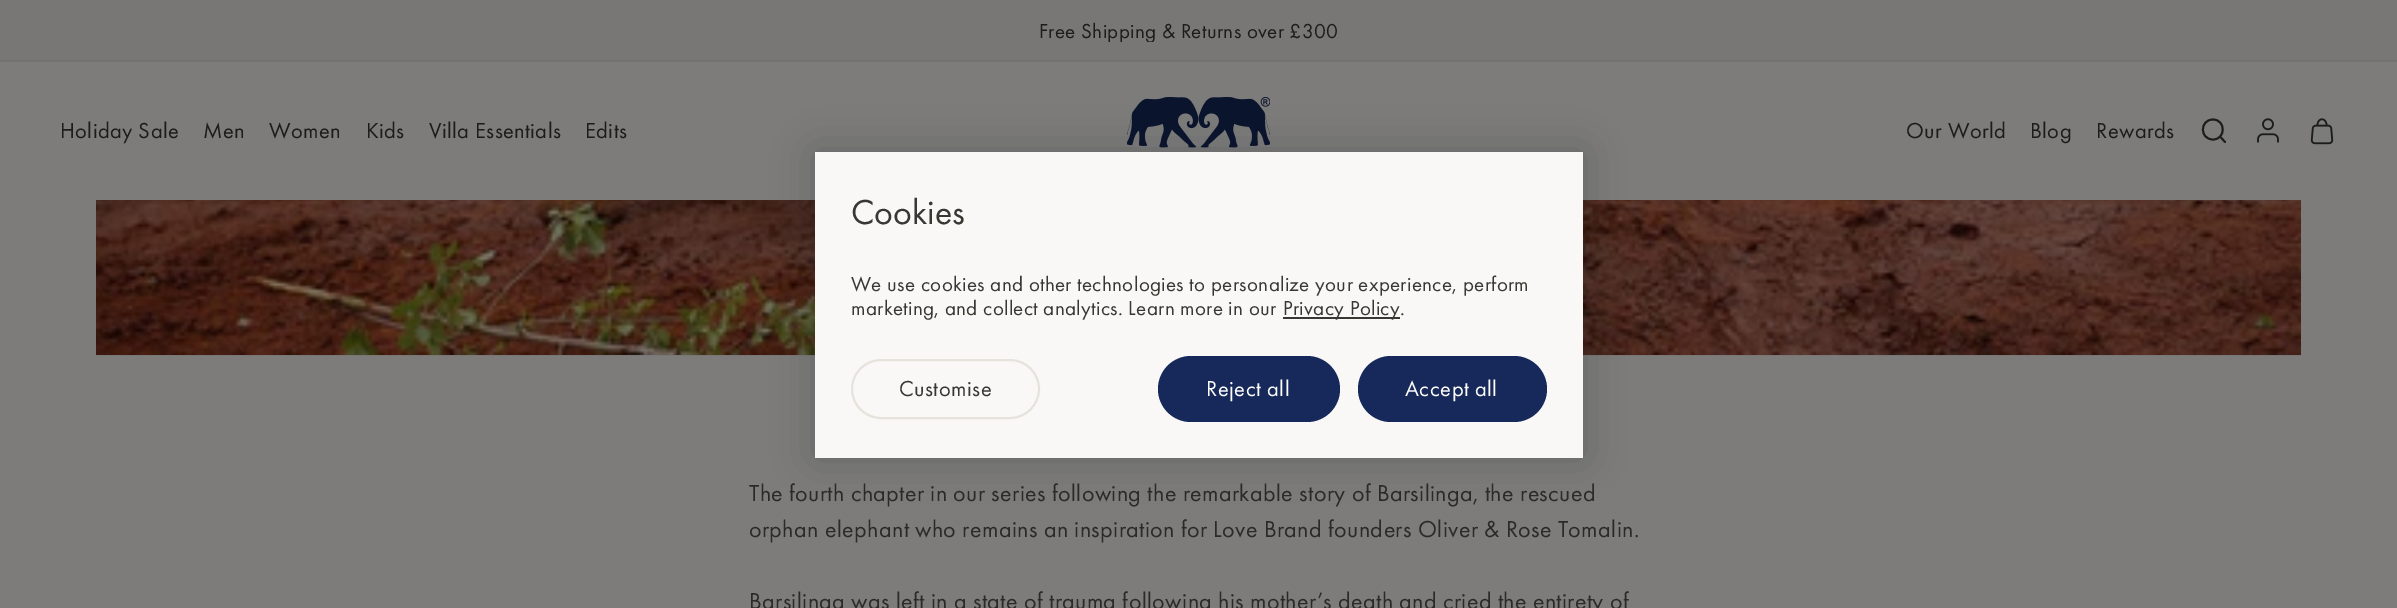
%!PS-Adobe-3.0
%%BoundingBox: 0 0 2397 608
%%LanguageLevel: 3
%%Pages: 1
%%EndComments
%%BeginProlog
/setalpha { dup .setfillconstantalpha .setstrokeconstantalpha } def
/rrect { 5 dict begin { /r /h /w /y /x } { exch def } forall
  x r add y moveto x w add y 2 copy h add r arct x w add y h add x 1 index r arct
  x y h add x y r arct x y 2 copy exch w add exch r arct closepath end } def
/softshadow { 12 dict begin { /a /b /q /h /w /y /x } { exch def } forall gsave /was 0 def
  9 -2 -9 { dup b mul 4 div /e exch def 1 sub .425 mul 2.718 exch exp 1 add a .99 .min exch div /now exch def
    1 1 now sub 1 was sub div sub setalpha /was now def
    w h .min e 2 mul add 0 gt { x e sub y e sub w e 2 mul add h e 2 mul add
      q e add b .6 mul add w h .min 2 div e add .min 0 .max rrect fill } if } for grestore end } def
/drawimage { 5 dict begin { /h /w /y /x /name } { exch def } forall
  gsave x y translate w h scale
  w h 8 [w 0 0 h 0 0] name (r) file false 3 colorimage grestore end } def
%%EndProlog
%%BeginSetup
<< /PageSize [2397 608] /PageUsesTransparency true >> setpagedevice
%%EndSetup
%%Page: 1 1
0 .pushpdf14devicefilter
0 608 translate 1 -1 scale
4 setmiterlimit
0.49 0.486 0.482 setrgbcolor
0 0 2397 608 rectfill
0.471 0.467 0.459 setrgbcolor
0 0 2397 60 rectfill
0.451 0.447 0.431 setrgbcolor
0 60 2397 2 rectfill
(images/1.raw) 1127 97 143 51 drawimage
0.114 0.11 0.098 setrgbcolor
1.9 setlinewidth
1 setlinecap
1 setlinejoin
newpath 2213 139.5 moveto 2226 139.5 2226 119.5 2213 119.5 curveto 2199.5 119.5 2199.5 139.5 2213 139.5 curveto closepath 2225 142 moveto 2220 136.5 lineto stroke
(images/2.raw) 2257 118 22 25 drawimage
(images/3.raw) 2310 118 24 27 drawimage
0.471 0.467 0.459 setrgbcolor
96 355 2205 1 rectfill
(images/4.raw) 96 200 2205 155 drawimage
0.004 0.043 0.075 setrgbcolor
815 152 768 306 0 21 0.2 softshadow
0.976 0.973 0.965 setrgbcolor
815 152 768 306 rectfill
0.224 0.216 0.196 setrgbcolor
1283 317 117 2 rectfill
0.898 0.89 0.863 setrgbcolor
2 setlinewidth
0 setlinecap
0 setlinejoin
852 360 187 58 29 rrect stroke
0.086 0.161 0.353 setrgbcolor
1158 356 182 66 33 rrect fill
1358 356 189 66 33 rrect fill
gsave
1040 18 300 24 rectclip
/FuturaPT-Regular [21 0 0 -21 0 0] selectfont
0.114 0.11 0.098 setrgbcolor
1039 38 moveto 0.35 0 (Free Shipping & Returns over £300) ashow
grestore
/FuturaPT-Regular [22.5 0 0 -22.5 0 0] selectfont
0.114 0.11 0.098 setrgbcolor
60 138 moveto 0.4 0 (Holiday Sale) ashow
203 138 moveto 0.4 0 (Men) ashow
269 138 moveto 0.4 0 (Women) ashow
366 138 moveto 0.4 0 (Kids) ashow
429 138 moveto 0.4 0 (Villa Essentials) ashow
585 138 moveto 0.4 0 (Edits) ashow
1906 138 moveto 0.4 0 (Our World) ashow
2030 138 moveto 0.4 0 (Blog) ashow
2096 138 moveto 0.4 0 (Rewards) ashow
/FuturaPT-Regular [36 0 0 -36 0 0] selectfont
0.224 0.216 0.196 setrgbcolor
851 224 moveto (Cookies) show
/FuturaPT-Regular [21 0 0 -21 0 0] selectfont
851 291 moveto 0.35 0 (We use cookies and other technologies to personalize your experience, perform) ashow
851 315 moveto 0.35 0 (marketing, and collect analytics. Learn more in our) ashow
1283 315 moveto 0.35 0 (Privacy Policy.) ashow
/FuturaPT-Regular [22.5 0 0 -22.5 0 0] selectfont
899 396 moveto 0.5 0 (Customise) ashow
1 0.996 0.992 setrgbcolor
1206 396 moveto 0.5 0 (Reject all) ashow
1405 396 moveto 0.5 0 (Accept all) ashow
/FuturaPT-Regular [24 0 0 -24 0 0] selectfont
0.169 0.165 0.149 setrgbcolor
749 501 moveto 0.4 0 (The fourth chapter in our series following the remarkable story of Barsilinga, the rescued) ashow
749 537 moveto 0.4 0 (orphan elephant who remains an inspiration for Love Brand founders Oliver & Rose Tomalin.) ashow
749 609 moveto 0.4 0 (Barsilinga was left in a state of trauma following his mother’s death and cried the entirety of) ashow
.poppdf14devicefilter showpage
%%EOF
